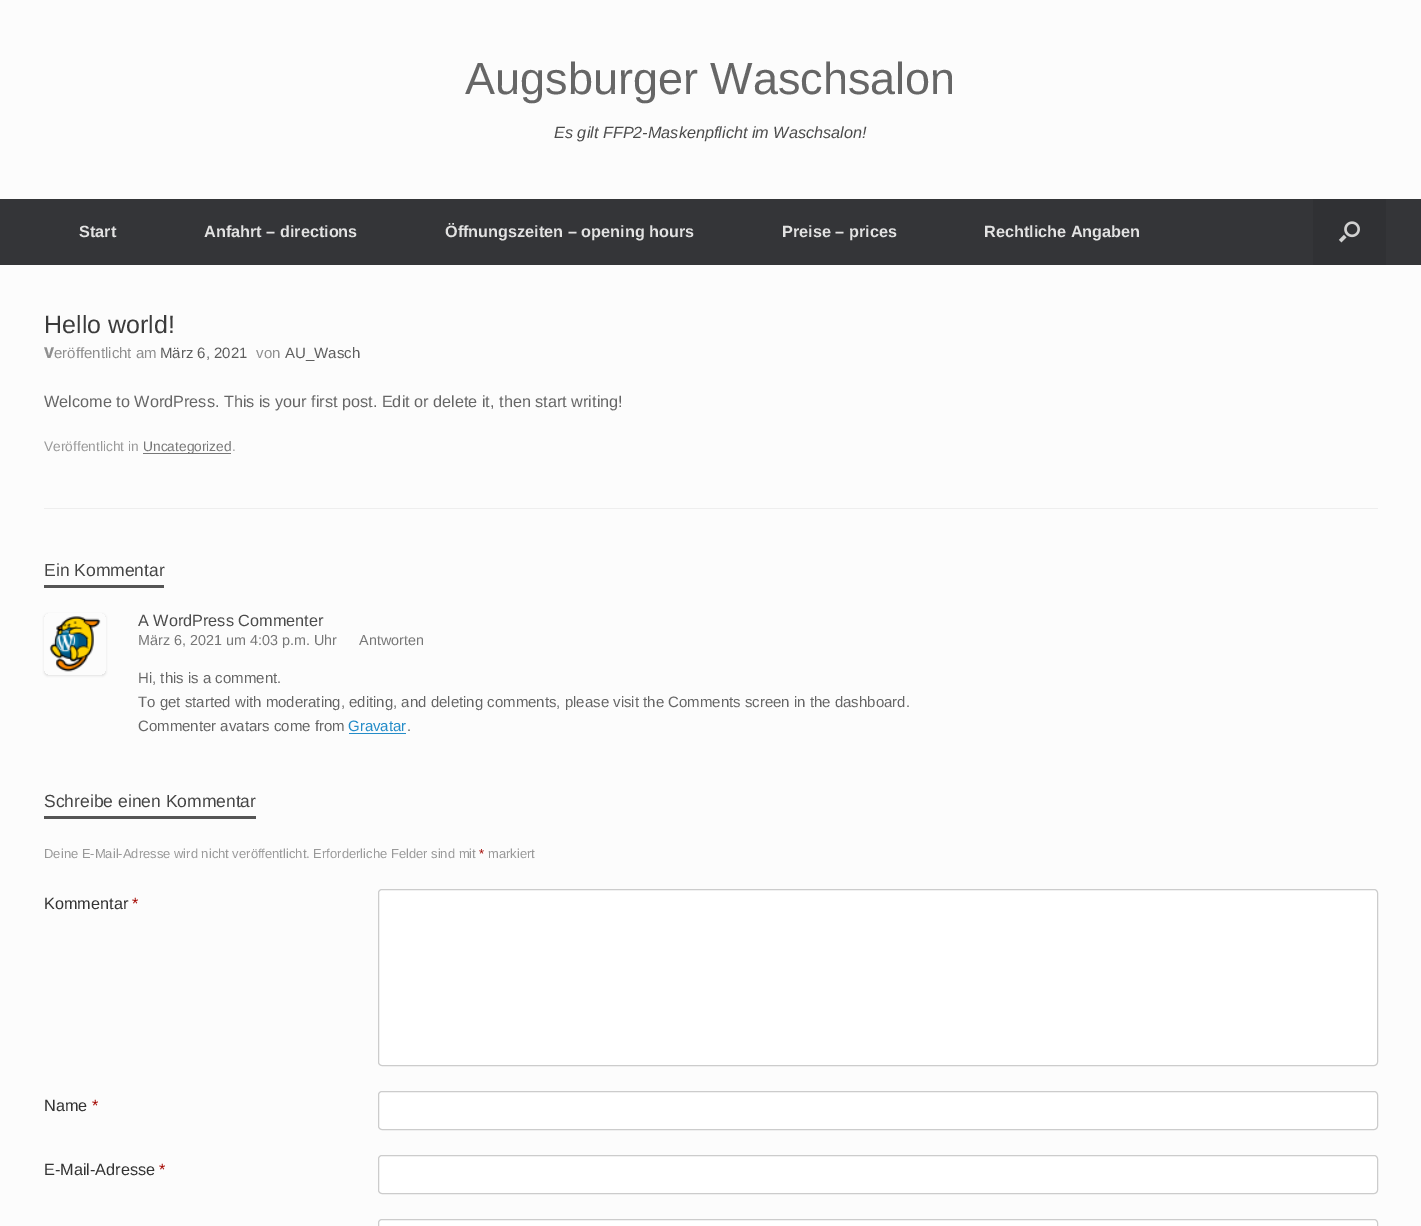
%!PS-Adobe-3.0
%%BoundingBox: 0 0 1421 1226
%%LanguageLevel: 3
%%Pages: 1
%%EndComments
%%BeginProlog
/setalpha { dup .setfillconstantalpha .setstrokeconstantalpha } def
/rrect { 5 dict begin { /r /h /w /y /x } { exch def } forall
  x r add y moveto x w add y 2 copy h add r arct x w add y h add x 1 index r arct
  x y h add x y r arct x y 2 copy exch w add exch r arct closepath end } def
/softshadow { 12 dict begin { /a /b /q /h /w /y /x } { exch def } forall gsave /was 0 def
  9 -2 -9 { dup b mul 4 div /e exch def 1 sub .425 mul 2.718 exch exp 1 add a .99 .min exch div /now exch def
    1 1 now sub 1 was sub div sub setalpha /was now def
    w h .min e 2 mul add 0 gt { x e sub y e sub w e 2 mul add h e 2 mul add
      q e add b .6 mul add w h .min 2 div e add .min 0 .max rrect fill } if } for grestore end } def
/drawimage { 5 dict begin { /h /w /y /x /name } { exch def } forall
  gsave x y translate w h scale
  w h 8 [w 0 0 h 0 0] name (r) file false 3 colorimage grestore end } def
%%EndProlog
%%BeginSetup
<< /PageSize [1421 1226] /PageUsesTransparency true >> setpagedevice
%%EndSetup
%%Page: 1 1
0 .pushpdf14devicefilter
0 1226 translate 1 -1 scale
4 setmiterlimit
0.988 setgray
0 0 1421 1226 rectfill
0.204 0.208 0.22 setrgbcolor
0 199 1421 66 rectfill
0.188 0.192 0.204 setrgbcolor
1313 199 73 66 rectfill
(images/1.raw) 1338 221 22 22 drawimage
0.933 setgray
44 508 1334 1 rectfill
0.467 setgray
143 453 88 1 rectfill
0.333 setgray
44 585 120 3 rectfill
gsave
newpath 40 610 moveto 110 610 lineto 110 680 lineto 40 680 lineto closepath 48 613 moveto 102 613 lineto 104 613 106 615 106 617 curveto 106 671 lineto 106 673 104 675 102 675 curveto 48 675 lineto 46 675 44 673 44 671 curveto 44 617 lineto 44 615 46 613 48 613 curveto closepath eoclip newpath
0 setgray
44 614 62 62 4 1 0.1 softshadow
grestore
(images/2.raw) 49 616 52 56 drawimage
0.141 0.549 0.784 setrgbcolor
349 733 57 1 rectfill
0.333 setgray
44 816 212 3 rectfill
1 setgray
378.5 889.5 999 176 3.5 rrect gsave fill grestore
0.8 setgray
stroke
1 setgray
378.5 1091.5 999 38 3.5 rrect gsave fill grestore
0.8 setgray
stroke
1 setgray
378.5 1155.5 999 38 3.5 rrect gsave fill grestore
0.8 setgray
stroke
1 setgray
378.5 1219.5 999 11 3.5 rrect gsave fill grestore
0.8 setgray
stroke
/LiberationSans-Regular [45 0 0 -45 0 0] selectfont
0.4 setgray
465 94 moveto (Augsburger Waschsalon) show
/LiberationSans-Italic [16.25 0 0 -16.25 0 0] selectfont
0.294 setgray
554 138 moveto (Es gilt FFP2-Maskenpflicht im Waschsalon!) show
/LiberationSans-Bold [16.25 0 0 -16.25 0 0] selectfont
0.886 setgray
79 237 moveto (Start) show
204 237 moveto (Anfahrt – directions) show
445 237 moveto (Öffnungszeiten – opening hours) show
782 237 moveto (Preise – prices) show
984 237 moveto (Rechtliche Angaben) show
/LiberationSans-Regular [25 0 0 -25 0 0] selectfont
0.231 setgray
44 333 moveto (Hello world!) show
/NotoSans-ExtraBold [15 0 0 -15 0 0] selectfont
0.561 setgray
44 358 moveto (V) show
/LiberationSans-Regular [15 0 0 -15 0 0] selectfont
54 358 moveto (eröffentlicht am) show
0.369 setgray
160 358 moveto (März 6, 2021) show
0.561 setgray
256 358 moveto (von) show
0.369 setgray
285 358 moveto (AU_Wasch) show
/LiberationSans-Regular [16.25 0 0 -16.25 0 0] selectfont
0.4 setgray
44 407 moveto (Welcome to WordPress. This is your first post. Edit or delete it, then start writing!) show
/LiberationSans-Regular [13.75 0 0 -13.75 0 0] selectfont
0.6 setgray
44 451 moveto (Veröffentlicht in) show
0.467 setgray
143 451 moveto (Uncategorized) show
0.6 setgray
232 451 moveto (.) show
/LiberationSans-Regular [17.5 0 0 -17.5 0 0] selectfont
0.267 setgray
44 576 moveto (Ein Kommentar) show
/LiberationSans-Regular [16.25 0 0 -16.25 0 0] selectfont
0.294 setgray
138 626 moveto (A WordPress Commenter) show
/LiberationSans-Regular [14.4 0 0 -14.4 0 0] selectfont
0.467 setgray
138 645 moveto (März 6, 2021 um 4:03 p.m. Uhr) show
359 645 moveto (Antworten) show
/LiberationSans-Regular [15 0 0 -15 0 0] selectfont
0.4 setgray
138 683 moveto (Hi, this is a comment.) show
138 707 moveto (To get started with moderating, editing, and deleting comments, please visit the Comments screen in the dashboard.) show
138 731 moveto (Commenter avatars come from) show
0.141 0.549 0.784 setrgbcolor
348 731 moveto (Gravatar) show
0.4 setgray
407 731 moveto (.) show
/LiberationSans-Regular [17.5 0 0 -17.5 0 0] selectfont
0.267 setgray
44 807 moveto (Schreibe einen Kommentar) show
/LiberationSans-Regular [13 0 0 -13 0 0] selectfont
0.6 setgray
44 858 moveto (Deine E-Mail-Adresse wird nicht veröffentlicht. Erforderliche Felder sind mit) show
0.643 0.031 0.008 setrgbcolor
479 858 moveto (*) show
0.6 setgray
488 858 moveto (markiert) show
/LiberationSans-Regular [16.25 0 0 -16.25 0 0] selectfont
0.2 setgray
44 909 moveto (Kommentar) show
0.643 0.031 0.008 setrgbcolor
132 909 moveto (*) show
0.2 setgray
44 1111 moveto (Name) show
0.643 0.031 0.008 setrgbcolor
92 1111 moveto (*) show
0.2 setgray
44 1175 moveto (E-Mail-Adresse) show
0.643 0.031 0.008 setrgbcolor
159 1175 moveto (*) show
.poppdf14devicefilter showpage
%%EOF
